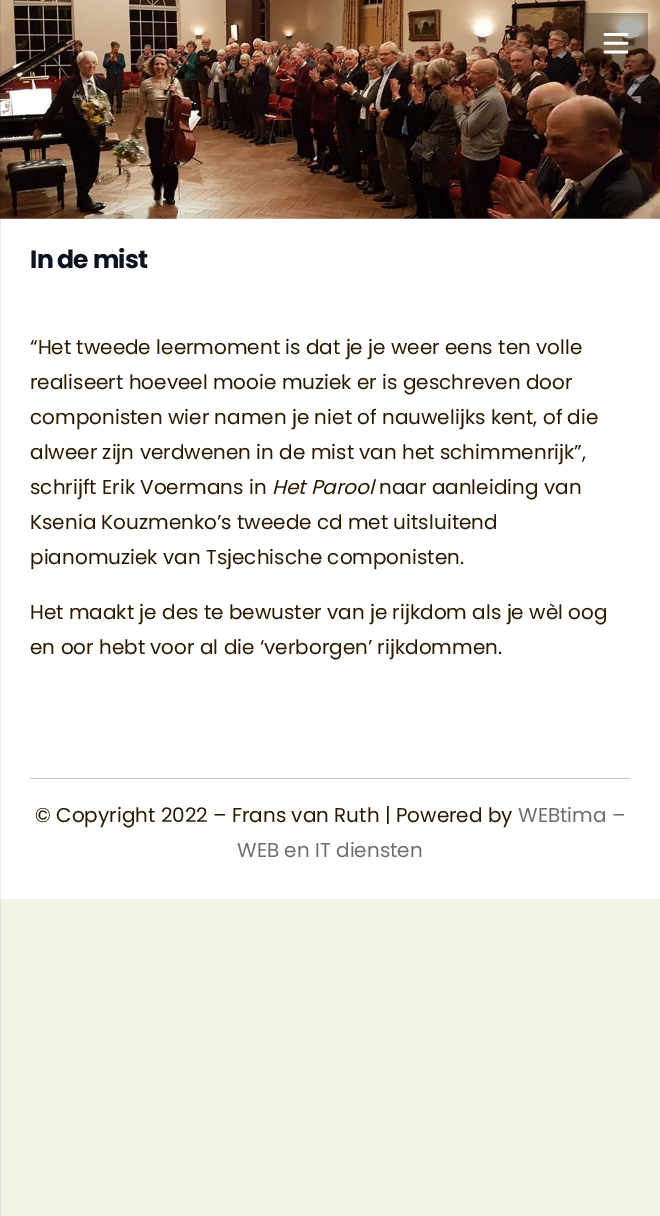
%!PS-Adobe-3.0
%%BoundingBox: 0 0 660 1216
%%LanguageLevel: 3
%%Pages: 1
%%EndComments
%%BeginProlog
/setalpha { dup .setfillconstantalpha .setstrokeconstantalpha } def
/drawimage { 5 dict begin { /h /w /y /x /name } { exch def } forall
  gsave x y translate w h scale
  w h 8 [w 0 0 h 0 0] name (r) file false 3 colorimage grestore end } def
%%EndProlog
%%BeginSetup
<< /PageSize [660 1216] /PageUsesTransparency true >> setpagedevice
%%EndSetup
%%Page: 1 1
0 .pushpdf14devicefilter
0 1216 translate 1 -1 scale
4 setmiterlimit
0.953 0.949 0.906 setrgbcolor
0 0 660 1216 rectfill
1 setgray
0 218 660 681 rectfill
(images/2.raw) 0 0 660 219 drawimage
0.3 setalpha
0 setgray
585 13 63 62 rectfill
1 setalpha
(images/1.raw) 603 33 26 21 drawimage
0.08 setalpha
0 0 1 1216 rectfill
1 setalpha
0.757 setgray
30 778 600 1 rectfill
/Poppins-Bold [25 0 0 -25 0 0] selectfont
0.059 0.075 0.122 setrgbcolor
30 268 moveto -0.75 0 (In de mist) ashow
/Poppins-Regular [20 0 0 -20 0 0] selectfont
0.173 0.102 0 setrgbcolor
30 354 moveto (“Het tweede leermoment is dat je je weer eens ten volle) show
30 389 moveto (realiseert hoeveel mooie muziek er is geschreven door) show
30 424 moveto (componisten wier namen je niet of nauwelijks kent, of die) show
30 459 moveto (alweer zijn verdwenen in de mist van het schimmenrijk”,) show
30 494 moveto (schrijft Erik Voermans in) show
/Poppins-Italic [20 0 0 -20 0 0] selectfont
272 494 moveto (Het Parool) show
/Poppins-Regular [20 0 0 -20 0 0] selectfont
379 494 moveto (naar aanleiding van) show
30 529 moveto (Ksenia Kouzmenko’s tweede cd met uitsluitend) show
30 564 moveto (pianomuziek van Tsjechische componisten.) show
30 619 moveto (Het maakt je des te bewuster van je rijkdom als je wèl oog) show
30 654 moveto (en oor hebt voor al die ‘verborgen’ rijkdommen.) show
35 822 moveto (© Copyright 2022 – Frans van Ruth | Powered by) show
0.447 0.427 0.416 setrgbcolor
518 822 moveto (WEBtima –) show
237 857 moveto (WEB en IT diensten) show
.poppdf14devicefilter showpage
%%EOF
